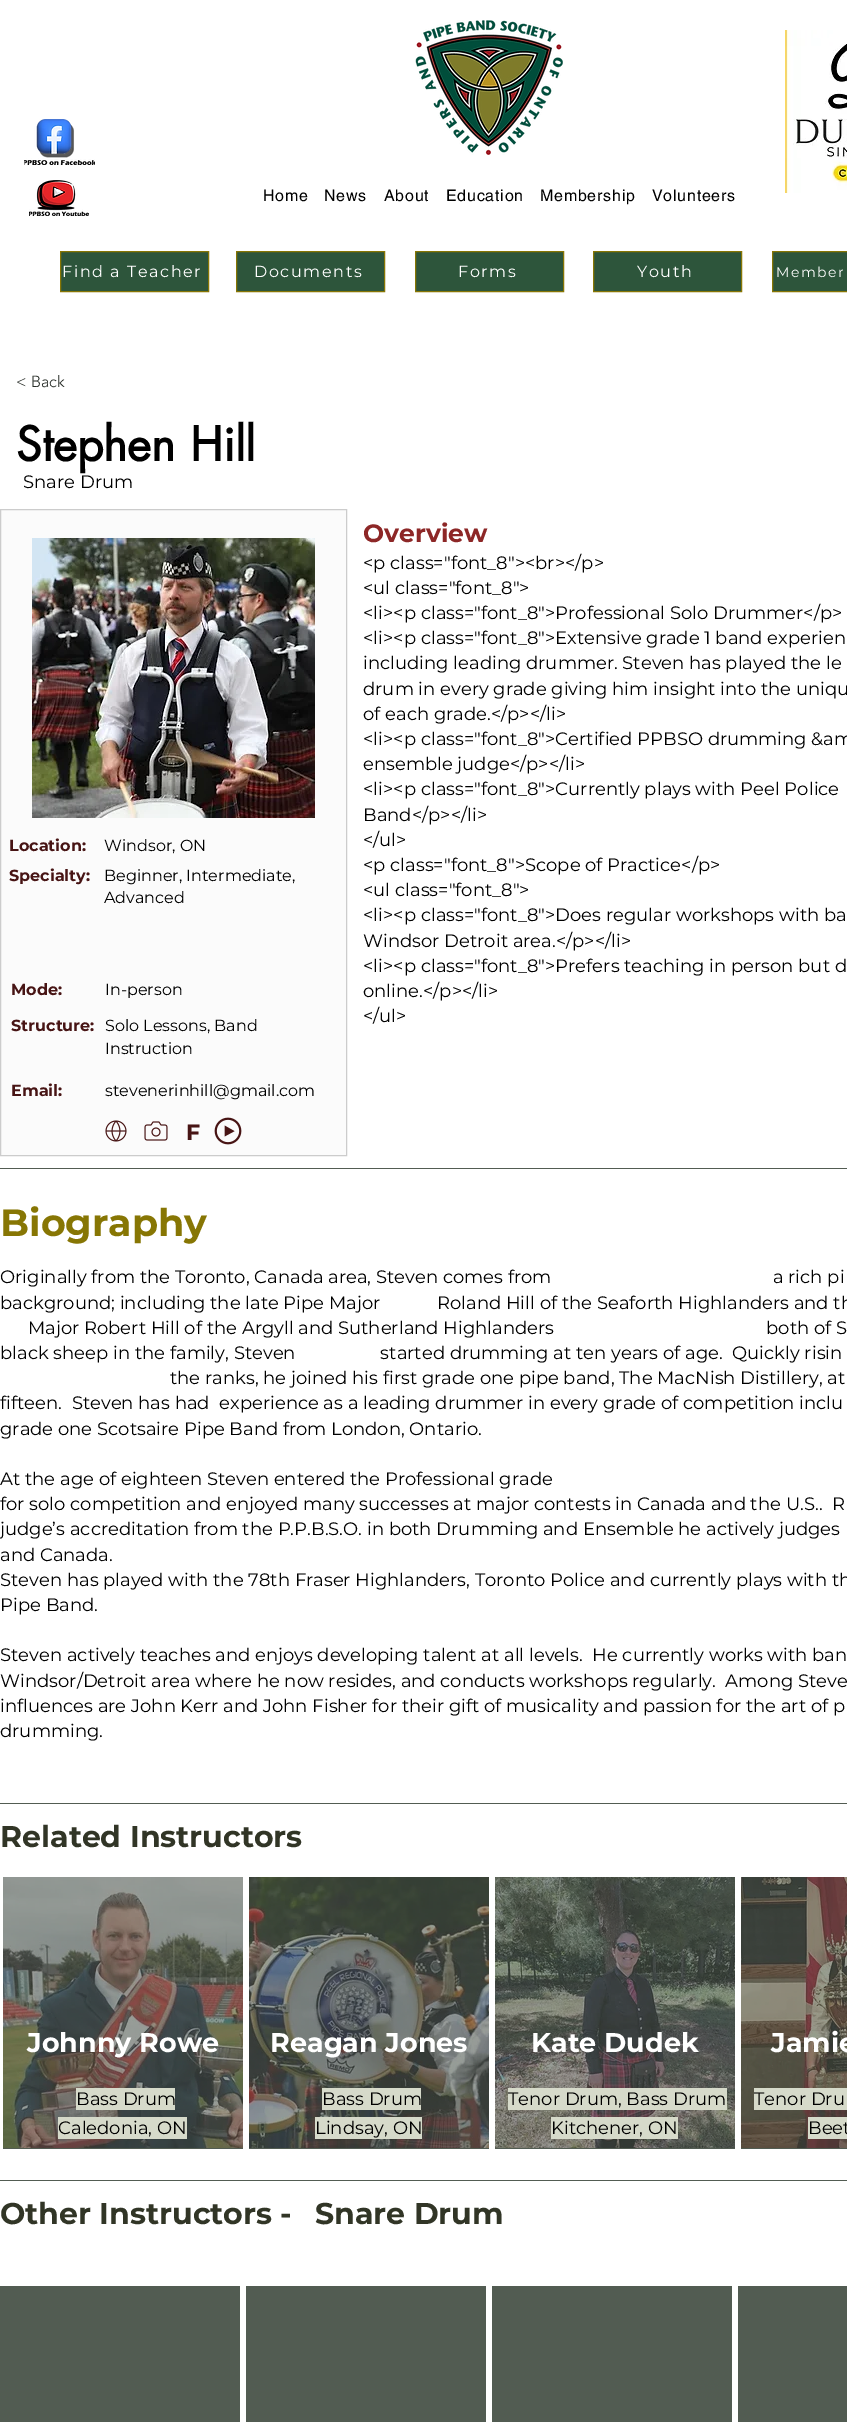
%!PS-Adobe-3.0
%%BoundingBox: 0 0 847 2422
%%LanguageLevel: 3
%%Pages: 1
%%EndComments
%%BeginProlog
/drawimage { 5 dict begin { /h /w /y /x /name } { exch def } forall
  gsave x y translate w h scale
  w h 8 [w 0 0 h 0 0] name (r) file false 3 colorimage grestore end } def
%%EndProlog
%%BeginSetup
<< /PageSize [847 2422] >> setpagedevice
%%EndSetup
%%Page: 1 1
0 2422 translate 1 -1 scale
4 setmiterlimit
1 setgray
0 0 847 2422 rectfill
(images/1.raw) 24 119 71 46 drawimage
(images/2.raw) 415 20 148 135 drawimage
(images/3.raw) 785 30 62 163 drawimage
(images/4.raw) 29 180 60 36 drawimage
0.176 0.333 0.231 setrgbcolor
newpath 60.5 251.5 moveto 208.5 251.5 lineto 208.5 291.5 lineto 60.5 291.5 lineto closepath gsave fill grestore
0.529 0.463 0.016 setrgbcolor
stroke
0.176 0.333 0.231 setrgbcolor
newpath 236.5 251.5 moveto 384.5 251.5 lineto 384.5 291.5 lineto 236.5 291.5 lineto closepath gsave fill grestore
0.529 0.463 0.016 setrgbcolor
stroke
0.176 0.333 0.231 setrgbcolor
newpath 415.5 251.5 moveto 563.5 251.5 lineto 563.5 291.5 lineto 415.5 291.5 lineto closepath gsave fill grestore
0.529 0.463 0.016 setrgbcolor
stroke
0.176 0.333 0.231 setrgbcolor
newpath 593.5 251.5 moveto 741.5 251.5 lineto 741.5 291.5 lineto 593.5 291.5 lineto closepath gsave fill grestore
0.529 0.463 0.016 setrgbcolor
stroke
0.176 0.333 0.231 setrgbcolor
newpath 772.5 251.5 moveto 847.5 251.5 lineto 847.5 291.5 lineto 772.5 291.5 lineto closepath gsave fill grestore
0.529 0.463 0.016 setrgbcolor
stroke
0.984 setgray
newpath 0.5 509.5 moveto 346.5 509.5 lineto 346.5 1155.5 lineto 0.5 1155.5 lineto closepath gsave fill grestore
0.8 setgray
stroke
(images/5.raw) 32 538 283 280 drawimage
(images/6.raw) 105 1120 22 22 drawimage
(images/7.raw) 144 1121 24 20 drawimage
(images/8.raw) 214 1117 28 28 drawimage
0.322 0.361 0.322 setrgbcolor
0 1168 847 1 rectfill
0 1803 847 1 rectfill
3 1877 240 272 rectfill
(images/9.raw) 3 1877 240 271 drawimage
0.839 0.855 0.792 setrgbcolor
76 2088 99 22 rectfill
58 2117 129 22 rectfill
0.322 0.361 0.322 setrgbcolor
249 1877 240 272 rectfill
(images/10.raw) 249 1877 240 271 drawimage
0.839 0.855 0.792 setrgbcolor
322 2088 99 22 rectfill
315 2117 107 22 rectfill
0.322 0.361 0.322 setrgbcolor
495 1877 240 272 rectfill
(images/11.raw) 495 1877 240 271 drawimage
0.839 0.855 0.792 setrgbcolor
508 2088 219 22 rectfill
551 2117 127 22 rectfill
0.322 0.361 0.322 setrgbcolor
741 1877 106 272 rectfill
(images/12.raw) 741 1877 106 271 drawimage
0.839 0.855 0.792 setrgbcolor
754 2088 93 22 rectfill
808 2117 39 22 rectfill
0.322 0.361 0.322 setrgbcolor
0 2180 847 1 rectfill
0 2286 240 136 rectfill
246 2286 240 136 rectfill
492 2286 240 136 rectfill
738 2286 109 136 rectfill
/helvetica-Regular [16 0 0 -16 0 0] selectfont
0 setgray
263 201 moveto 0.75 0 (Home) ashow
324 201 moveto 0.75 0 (News) ashow
384 201 moveto 0.75 0 (About) ashow
446 201 moveto 0.75 0 (Education) ashow
540 201 moveto 0.75 0 (Membership) ashow
652 201 moveto 0.75 0 (Volunteers) ashow
/Montserrat-Regular [16 0 0 -16 0 0] selectfont
1 setgray
62 277 moveto 1.6 0 (Find a Teacher) ashow
254 277 moveto 1.6 0 (Documents) ashow
458 277 moveto 1.6 0 (Forms) ashow
637 277 moveto 1.6 0 (Youth) ashow
/Montserrat-Regular [14 0 0 -14 0 0] selectfont
776 277 moveto 1.5 0 (Member) ashow
/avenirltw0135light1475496-Light [16 0 0 -16 0 0] selectfont
0.161 0.18 0.161 setrgbcolor
16 387 moveto (< Back) show
/futura-Bold [46 0 0 -46 0 0] selectfont
0 setgray
16 461 moveto (Stephen Hill) show
/Montserrat-Regular [18 0 0 -18 0 0] selectfont
23 488 moveto (Snare Drum) show
/Montserrat-Bold [25 0 0 -25 0 0] selectfont
0.553 0.153 0.153 setrgbcolor
363 542 moveto (Overview) show
/Montserrat-Bold [16 0 0 -16 0 0] selectfont
0.278 0.078 0.078 setrgbcolor
9 851 moveto (Location:) show
/Montserrat-Regular [16 0 0 -16 0 0] selectfont
0 setgray
104 851 moveto (Windsor, ON) show
/Montserrat-Bold [16 0 0 -16 0 0] selectfont
0.278 0.078 0.078 setrgbcolor
9 881 moveto (Specialty:) show
/Montserrat-Regular [16 0 0 -16 0 0] selectfont
0 setgray
104 881 moveto (Beginner, Intermediate,) show
104 903 moveto (Advanced) show
/Montserrat-Bold [16 0 0 -16 0 0] selectfont
0.278 0.078 0.078 setrgbcolor
11 995 moveto (Mode:) show
/Montserrat-Regular [16 0 0 -16 0 0] selectfont
0 setgray
105 995 moveto (In-person) show
/Montserrat-Bold [16 0 0 -16 0 0] selectfont
0.278 0.078 0.078 setrgbcolor
11 1031 moveto (Structure:) show
/Montserrat-Regular [16 0 0 -16 0 0] selectfont
0 setgray
105 1031 moveto (Solo Lessons, Band) show
105 1054 moveto (Instruction) show
/Montserrat-Bold [16 0 0 -16 0 0] selectfont
0.278 0.078 0.078 setrgbcolor
11 1096 moveto (Email:) show
/Montserrat-Regular [16 0 0 -16 0 0] selectfont
0 setgray
105 1096 moveto (stevenerinhill@gmail.com) show
/Montserrat-Bold [22 0 0 -22 0 0] selectfont
0.278 0.078 0.078 setrgbcolor
186 1140 moveto (F) show
/Montserrat-Regular [18 0 0 -18 0 0] selectfont
0 setgray
363 569 moveto (<p class="font_8"><br></p>) show
363 594 moveto (<ul class="font_8">) show
363 619 moveto (<li><p class="font_8">Professional Solo Drummer</p>) show
363 644 moveto (<li><p class="font_8">Extensive grade 1 band experien) show
363 669 moveto (including leading drummer. Steven has played the le) show
363 695 moveto (drum in every grade giving him insight into the uniqu) show
363 720 moveto (of each grade.</p></li>) show
363 745 moveto (<li><p class="font_8">Certified PPBSO drumming &am) show
363 770 moveto (ensemble judge</p></li>) show
363 795 moveto (<li><p class="font_8">Currently plays with Peel Police) show
363 821 moveto (Band</p></li>) show
363 846 moveto (</ul>) show
363 871 moveto (<p class="font_8">Scope of Practice</p>) show
363 896 moveto (<ul class="font_8">) show
363 921 moveto (<li><p class="font_8">Does regular workshops with ba) show
363 947 moveto (Windsor Detroit area.</p></li>) show
363 972 moveto (<li><p class="font_8">Prefers teaching in person but d) show
363 997 moveto (online.</p></li>) show
363 1022 moveto (</ul>) show
/Montserrat-Bold [38 0 0 -38 0 0] selectfont
0.529 0.463 0.016 setrgbcolor
0 1236 moveto (Biography) show
/Montserrat-Regular [18 0 0 -18 0 0] selectfont
0 setgray
0 1283 moveto (Originally from the Toronto, Canada area, Steven comes from                                               a rich pi) show
0 1309 moveto (background; including the late Pipe Major            Roland Hill of the Seaforth Highlanders and th) show
28 1334 moveto (Major Robert Hill of the Argyll and Sutherland Highlanders                                             both of S) show
0 1359 moveto (black sheep in the family, Steven                  started drumming at ten years of age.  Quickly risin) show
170 1384 moveto (the ranks, he joined his first grade one pipe band, The MacNish Distillery, at) show
0 1409 moveto (fifteen.  Steven has had  experience as a leading drummer in every grade of competition inclu) show
0 1435 moveto (grade one Scotsaire Pipe Band from London, Ontario.) show
0 1485 moveto (At the age of eighteen Steven entered the Professional grade) show
0 1510 moveto (for solo competition and enjoyed many successes at major contests in Canada and the U.S..  R) show
0 1535 moveto (judge’s accreditation from the P.P.B.S.O. in both Drumming and Ensemble he actively judges) show
0 1561 moveto (and Canada.) show
0 1586 moveto (Steven has played with the 78th Fraser Highlanders, Toronto Police and currently plays with th) show
0 1611 moveto (Pipe Band.) show
0 1661 moveto (Steven actively teaches and enjoys developing talent at all levels.  He currently works with ban) show
0 1687 moveto (Windsor/Detroit area where he now resides, and conducts workshops regularly.  Among Steve) show
0 1712 moveto (influences are John Kerr and John Fisher for their gift of musicality and passion for the art of p) show
0 1737 moveto (drumming.) show
/Montserrat-Bold [30 0 0 -30 0 0] selectfont
0.192 0.208 0.149 setrgbcolor
0 1847 moveto (Related Instructors) show
/Montserrat-Bold [27 0 0 -27 0 0] selectfont
1 setgray
27 2052 moveto (Johnny Rowe) show
/Montserrat-Regular [18 0 0 -18 0 0] selectfont
0 setgray
76 2105 moveto (Bass Drum) show
58 2134 moveto (Caledonia, ON) show
/Montserrat-Bold [27 0 0 -27 0 0] selectfont
1 setgray
270 2052 moveto (Reagan Jones) show
/Montserrat-Regular [18 0 0 -18 0 0] selectfont
0 setgray
322 2105 moveto (Bass Drum) show
315 2134 moveto (Lindsay, ON) show
/Montserrat-Bold [27 0 0 -27 0 0] selectfont
1 setgray
531 2052 moveto (Kate Dudek) show
/Montserrat-Regular [18 0 0 -18 0 0] selectfont
0 setgray
508 2105 moveto (Tenor Drum, Bass Drum) show
551 2134 moveto (Kitchener, ON) show
/Montserrat-Bold [27 0 0 -27 0 0] selectfont
1 setgray
771 2052 moveto (Jamie) show
/Montserrat-Regular [18 0 0 -18 0 0] selectfont
0 setgray
754 2105 moveto (Tenor Dru) show
808 2134 moveto (Beet) show
/Montserrat-Bold [30 0 0 -30 0 0] selectfont
0.192 0.208 0.149 setrgbcolor
0 2224 moveto (Other Instructors -) show
315 2224 moveto (Snare Drum) show
showpage
%%EOF
